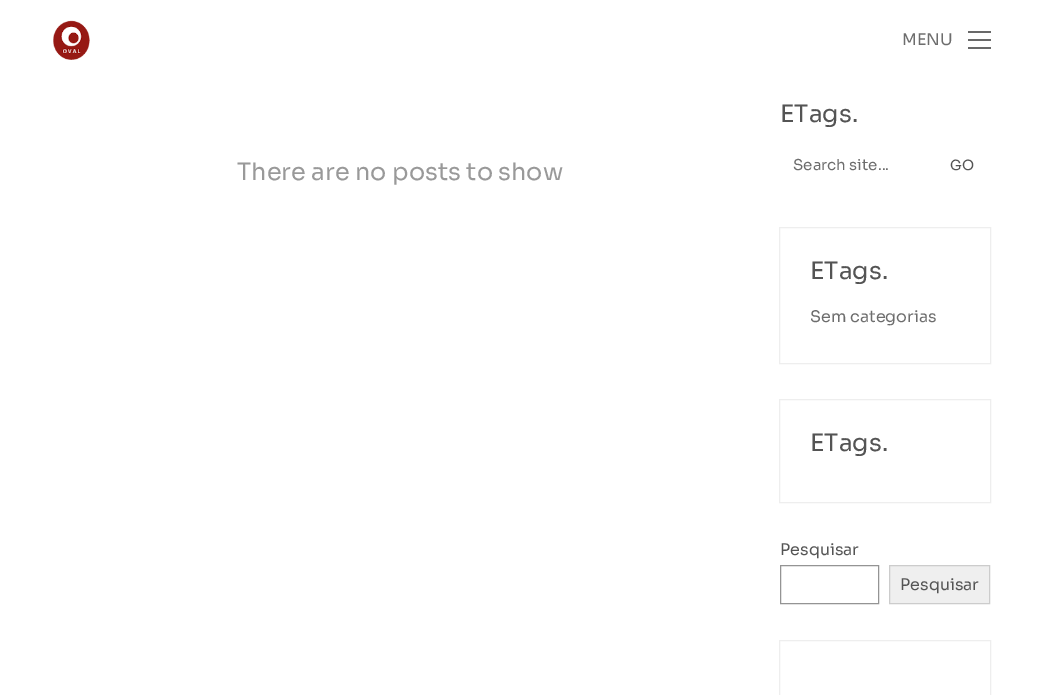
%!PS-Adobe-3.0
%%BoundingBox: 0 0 1042 695
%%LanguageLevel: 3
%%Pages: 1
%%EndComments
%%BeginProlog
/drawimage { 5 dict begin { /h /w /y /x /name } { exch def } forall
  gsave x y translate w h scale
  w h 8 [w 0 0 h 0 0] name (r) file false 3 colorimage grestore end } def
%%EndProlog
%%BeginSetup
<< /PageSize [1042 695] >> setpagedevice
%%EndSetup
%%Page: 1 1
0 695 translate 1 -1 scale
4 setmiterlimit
1 setgray
0 0 1042 695 rectfill
(images/1.raw) 53 20 37 40 drawimage
0.412 setgray
968 31 23 2 rectfill
968 39 23 2 rectfill
968 47 23 2 rectfill
0.933 setgray
779.5 227.5 211 136 rectstroke
779.5 399.5 211 103 rectstroke
0.58 setgray
780.5 565.5 98 38 rectstroke
0.937 setgray
newpath 889.5 565.5 moveto 989.5 565.5 lineto 989.5 603.5 lineto 889.5 603.5 lineto closepath gsave fill grestore
0.8 setgray
stroke
0.933 setgray
779.5 640.5 211 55 rectstroke
/Sora-Regular [16 0 0 -16 0 0] selectfont
0.427 setgray
902 45 moveto (MENU) show
/Sora-Regular [24 0 0 -24 0 0] selectfont
0.6 setgray
237 180 moveto (There are no posts to show) show
0.329 setgray
780 122 moveto (ETags.) show
/Sora-Regular [15 0 0 -15 0 0] selectfont
0.427 setgray
793 170 moveto (Search site...) show
/Sora-Regular [14 0 0 -14 0 0] selectfont
0.329 setgray
950 170 moveto (GO) show
/Sora-Regular [24 0 0 -24 0 0] selectfont
810 279 moveto (ETags.) show
/Sora-Regular [16 0 0 -16 0 0] selectfont
0.427 setgray
810 322 moveto (Sem categorias) show
/Sora-Regular [24 0 0 -24 0 0] selectfont
0.329 setgray
810 451 moveto (ETags.) show
/Sora-Regular [16 0 0 -16 0 0] selectfont
780 555 moveto (Pesquisar) show
900 590 moveto (Pesquisar) show
showpage
%%EOF
